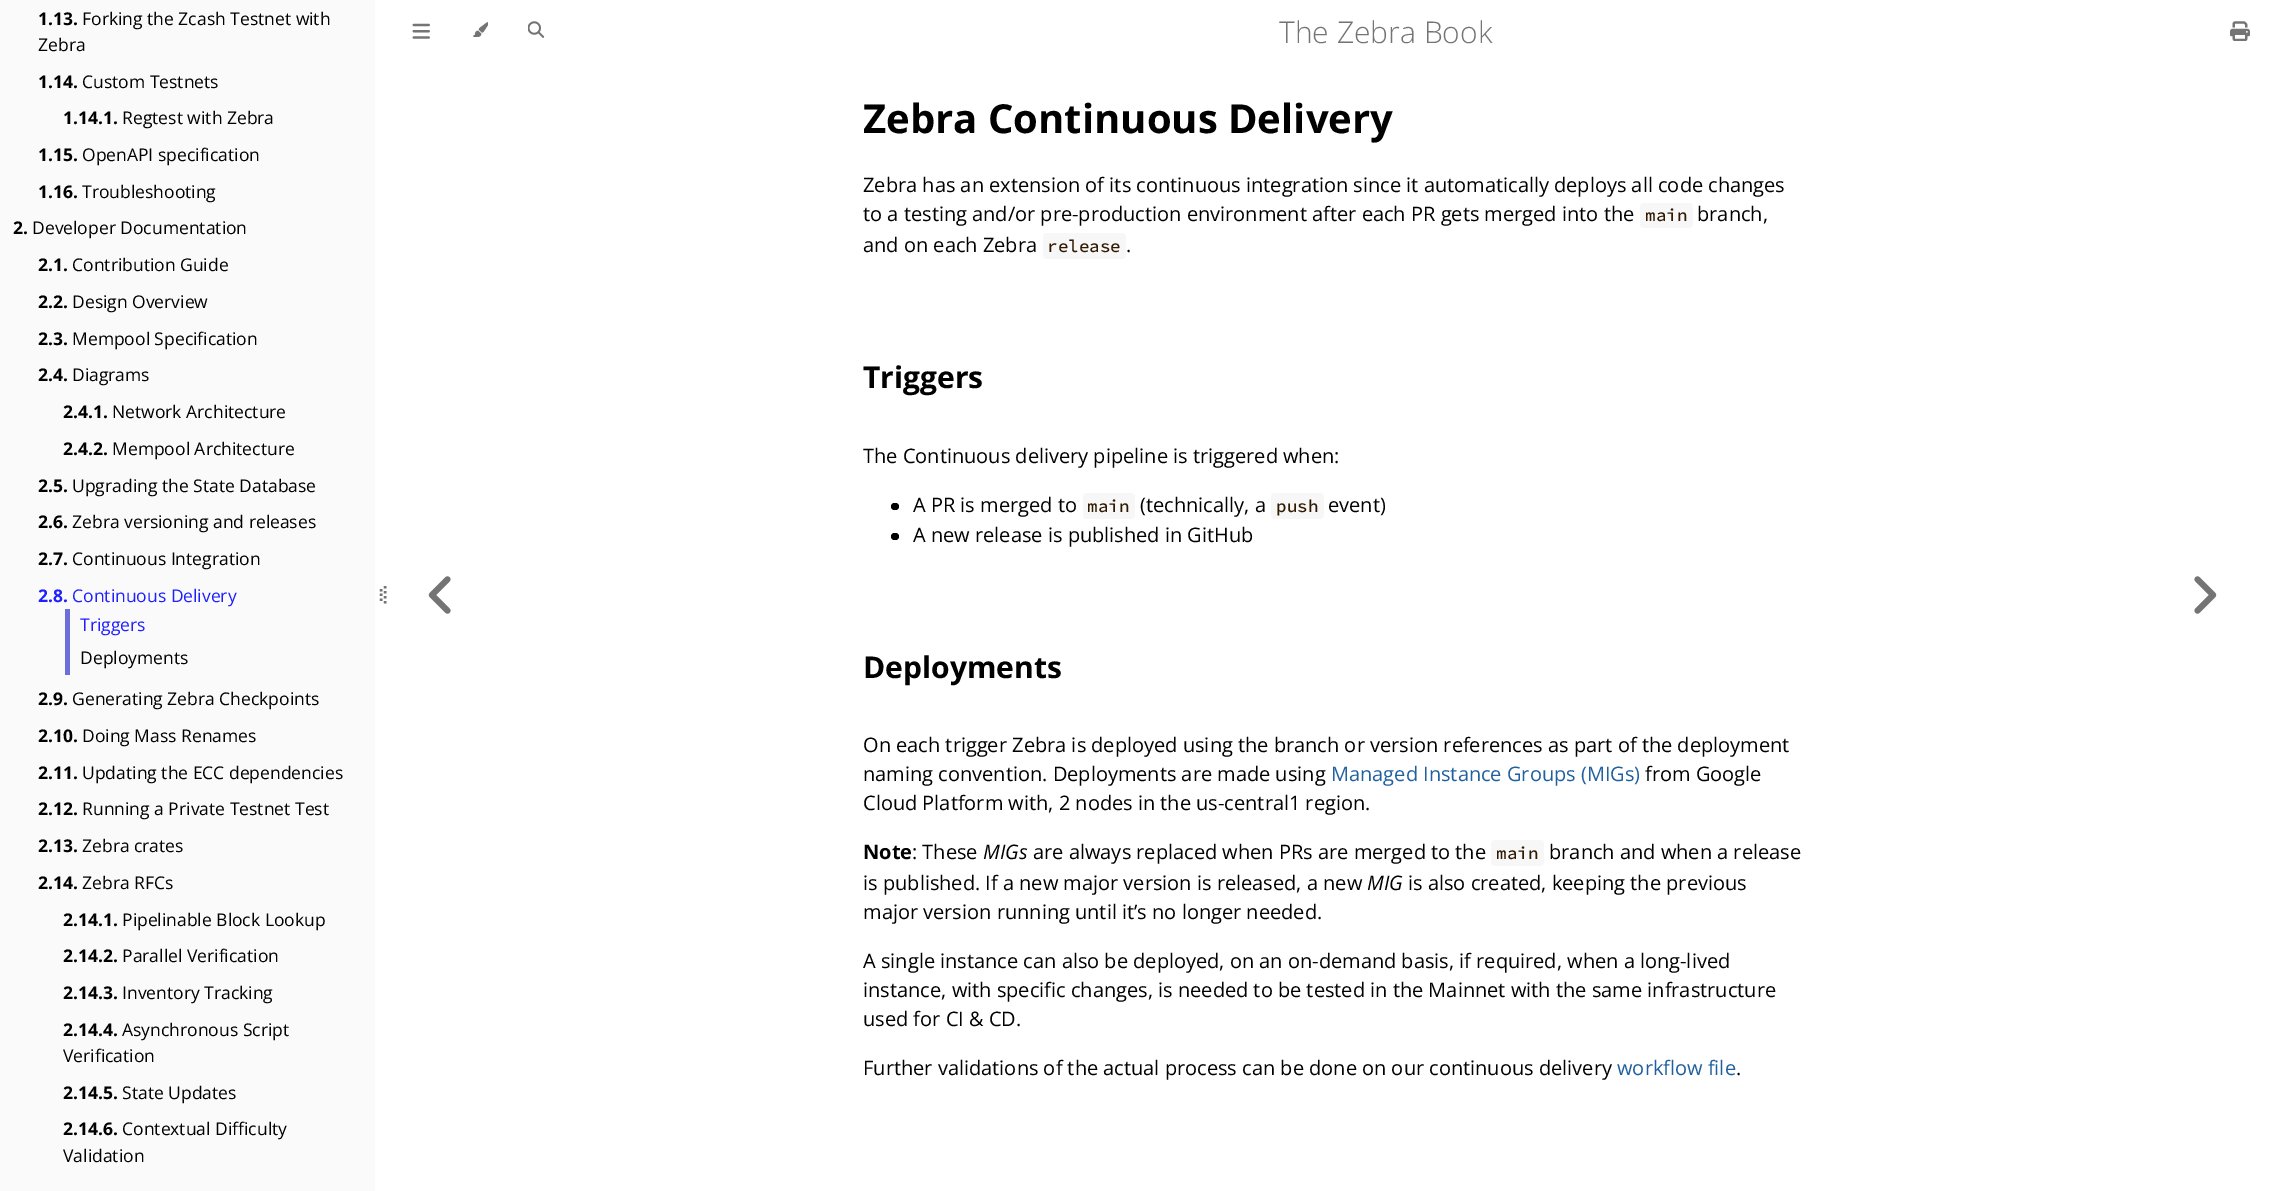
%!PS-Adobe-3.0
%%BoundingBox: 0 0 2278 1191
%%LanguageLevel: 3
%%Pages: 1
%%EndComments
%%BeginProlog
/rrect { 5 dict begin { /r /h /w /y /x } { exch def } forall
  x r add y moveto x w add y 2 copy h add r arct x w add y h add x 1 index r arct
  x y h add x y r arct x y 2 copy exch w add exch r arct closepath end } def
/drawimage { 5 dict begin { /h /w /y /x /name } { exch def } forall
  gsave x y translate w h scale
  w h 8 [w 0 0 h 0 0] name (r) file false 3 colorimage grestore end } def
%%EndProlog
%%BeginSetup
<< /PageSize [2278 1191] >> setpagedevice
%%EndSetup
%%Page: 1 1
0 1191 translate 1 -1 scale
4 setmiterlimit
1 setgray
0 0 2278 1191 rectfill
0.98 setgray
0 0 375 1191 rectfill
0.431 0.431 0.859 setrgbcolor
65 609 5 66 rectfill
0.455 setgray
2.5 setlinewidth
newpath 381 589 moveto 381 591.5 lineto 381 593.5 moveto 381 596 lineto 381 598.5 moveto 381 601 lineto stroke
[2.5 2.5] 0 setdash
newpath 385 586 moveto 385 606 lineto stroke
(images/1.raw) 412 23 18 16 drawimage
(images/2.raw) 473 22 15 15 drawimage
(images/3.raw) 528 21 17 17 drawimage
(images/4.raw) 2230 21 20 20 drawimage
0.965 0.969 0.965 setrgbcolor
1640 203 53 25 4 rrect fill
1043 233 83 26 4 rrect fill
0 setgray
891 503 8 7 3.5 rrect fill
0.965 0.969 0.965 setrgbcolor
1083 493 52 26 4 rrect fill
1271 493 53 26 4 rrect fill
0 setgray
891 533 8 7 3.5 rrect fill
0.965 0.969 0.965 setrgbcolor
1491 840 53 26 4 rrect fill
(images/5.raw) 428 576 23 38 drawimage
(images/6.raw) 2194 576 23 38 drawimage
/OpenSans-Bold [17.5 0 0 -17.5 0 0] selectfont
0 setgray
38 25 moveto (1.13.) show
/OpenSans-Regular [17.5 0 0 -17.5 0 0] selectfont
82 25 moveto (Forking the Zcash Testnet with) show
38 51 moveto (Zebra) show
/OpenSans-Bold [17.5 0 0 -17.5 0 0] selectfont
38 88 moveto (1.14.) show
/OpenSans-Regular [17.5 0 0 -17.5 0 0] selectfont
82 88 moveto (Custom Testnets) show
/OpenSans-Bold [17.5 0 0 -17.5 0 0] selectfont
63 124 moveto (1.14.1.) show
/OpenSans-Regular [17.5 0 0 -17.5 0 0] selectfont
122 124 moveto (Regtest with Zebra) show
/OpenSans-Bold [17.5 0 0 -17.5 0 0] selectfont
38 161 moveto (1.15.) show
/OpenSans-Regular [17.5 0 0 -17.5 0 0] selectfont
82 161 moveto (OpenAPI specification) show
/OpenSans-Bold [17.5 0 0 -17.5 0 0] selectfont
38 198 moveto (1.16.) show
/OpenSans-Regular [17.5 0 0 -17.5 0 0] selectfont
82 198 moveto (Troubleshooting) show
/OpenSans-Bold [17.5 0 0 -17.5 0 0] selectfont
13 234 moveto (2.) show
/OpenSans-Regular [17.5 0 0 -17.5 0 0] selectfont
32 234 moveto (Developer Documentation) show
/OpenSans-Bold [17.5 0 0 -17.5 0 0] selectfont
38 271 moveto (2.1.) show
/OpenSans-Regular [17.5 0 0 -17.5 0 0] selectfont
72 271 moveto (Contribution Guide) show
/OpenSans-Bold [17.5 0 0 -17.5 0 0] selectfont
38 308 moveto (2.2.) show
/OpenSans-Regular [17.5 0 0 -17.5 0 0] selectfont
72 308 moveto (Design Overview) show
/OpenSans-Bold [17.5 0 0 -17.5 0 0] selectfont
38 345 moveto (2.3.) show
/OpenSans-Regular [17.5 0 0 -17.5 0 0] selectfont
72 345 moveto (Mempool Specification) show
/OpenSans-Bold [17.5 0 0 -17.5 0 0] selectfont
38 381 moveto (2.4.) show
/OpenSans-Regular [17.5 0 0 -17.5 0 0] selectfont
72 381 moveto (Diagrams) show
/OpenSans-Bold [17.5 0 0 -17.5 0 0] selectfont
63 418 moveto (2.4.1.) show
/OpenSans-Regular [17.5 0 0 -17.5 0 0] selectfont
112 418 moveto (Network Architecture) show
/OpenSans-Bold [17.5 0 0 -17.5 0 0] selectfont
63 455 moveto (2.4.2.) show
/OpenSans-Regular [17.5 0 0 -17.5 0 0] selectfont
112 455 moveto (Mempool Architecture) show
/OpenSans-Bold [17.5 0 0 -17.5 0 0] selectfont
38 492 moveto (2.5.) show
/OpenSans-Regular [17.5 0 0 -17.5 0 0] selectfont
72 492 moveto (Upgrading the State Database) show
/OpenSans-Bold [17.5 0 0 -17.5 0 0] selectfont
38 528 moveto (2.6.) show
/OpenSans-Regular [17.5 0 0 -17.5 0 0] selectfont
72 528 moveto (Zebra versioning and releases) show
/OpenSans-Bold [17.5 0 0 -17.5 0 0] selectfont
38 565 moveto (2.7.) show
/OpenSans-Regular [17.5 0 0 -17.5 0 0] selectfont
72 565 moveto (Continuous Integration) show
/OpenSans-Bold [17.5 0 0 -17.5 0 0] selectfont
0.122 0.122 1 setrgbcolor
38 602 moveto (2.8.) show
/OpenSans-Regular [17.5 0 0 -17.5 0 0] selectfont
72 602 moveto (Continuous Delivery) show
80 631 moveto (Triggers) show
0 setgray
80 664 moveto (Deployments) show
/OpenSans-Bold [17.5 0 0 -17.5 0 0] selectfont
38 705 moveto (2.9.) show
/OpenSans-Regular [17.5 0 0 -17.5 0 0] selectfont
72 705 moveto (Generating Zebra Checkpoints) show
/OpenSans-Bold [17.5 0 0 -17.5 0 0] selectfont
38 742 moveto (2.10.) show
/OpenSans-Regular [17.5 0 0 -17.5 0 0] selectfont
82 742 moveto (Doing Mass Renames) show
/OpenSans-Bold [17.5 0 0 -17.5 0 0] selectfont
38 779 moveto (2.11.) show
/OpenSans-Regular [17.5 0 0 -17.5 0 0] selectfont
82 779 moveto (Updating the ECC dependencies) show
/OpenSans-Bold [17.5 0 0 -17.5 0 0] selectfont
38 815 moveto (2.12.) show
/OpenSans-Regular [17.5 0 0 -17.5 0 0] selectfont
82 815 moveto (Running a Private Testnet Test) show
/OpenSans-Bold [17.5 0 0 -17.5 0 0] selectfont
38 852 moveto (2.13.) show
/OpenSans-Regular [17.5 0 0 -17.5 0 0] selectfont
82 852 moveto (Zebra crates) show
/OpenSans-Bold [17.5 0 0 -17.5 0 0] selectfont
38 889 moveto (2.14.) show
/OpenSans-Regular [17.5 0 0 -17.5 0 0] selectfont
82 889 moveto (Zebra RFCs) show
/OpenSans-Bold [17.5 0 0 -17.5 0 0] selectfont
63 926 moveto (2.14.1.) show
/OpenSans-Regular [17.5 0 0 -17.5 0 0] selectfont
122 926 moveto (Pipelinable Block Lookup) show
/OpenSans-Bold [17.5 0 0 -17.5 0 0] selectfont
63 962 moveto (2.14.2.) show
/OpenSans-Regular [17.5 0 0 -17.5 0 0] selectfont
122 962 moveto (Parallel Verification) show
/OpenSans-Bold [17.5 0 0 -17.5 0 0] selectfont
63 999 moveto (2.14.3.) show
/OpenSans-Regular [17.5 0 0 -17.5 0 0] selectfont
122 999 moveto (Inventory Tracking) show
/OpenSans-Bold [17.5 0 0 -17.5 0 0] selectfont
63 1036 moveto (2.14.4.) show
/OpenSans-Regular [17.5 0 0 -17.5 0 0] selectfont
122 1036 moveto (Asynchronous Script) show
63 1062 moveto (Verification) show
/OpenSans-Bold [17.5 0 0 -17.5 0 0] selectfont
63 1099 moveto (2.14.5.) show
/OpenSans-Regular [17.5 0 0 -17.5 0 0] selectfont
122 1099 moveto (State Updates) show
/OpenSans-Bold [17.5 0 0 -17.5 0 0] selectfont
63 1135 moveto (2.14.6.) show
/OpenSans-Regular [17.5 0 0 -17.5 0 0] selectfont
122 1135 moveto (Contextual Difficulty) show
63 1162 moveto (Validation) show
/OpenSans-Light [30 0 0 -30 0 0] selectfont
0.455 setgray
1279 43 moveto (The Zebra Book) show
/OpenSans-Bold [40 0 0 -40 0 0] selectfont
0 setgray
863 133 moveto (Zebra Continuous Delivery) show
/OpenSans-Regular [20 0 0 -20 0 0] selectfont
863 192 moveto (Zebra has an extension of its continuous integration since it automatically deploys all code changes) show
863 221 moveto (to a testing and/or pre-production environment after each PR gets merged into the) show
/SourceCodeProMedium-Medium [17.5 0 0 -17.5 0 0] selectfont
0.188 0.098 0 setrgbcolor
1645 221 moveto (main) show
/OpenSans-Regular [20 0 0 -20 0 0] selectfont
0 setgray
1697 221 moveto (branch,) show
863 252 moveto (and on each Zebra) show
/SourceCodeProMedium-Medium [17.5 0 0 -17.5 0 0] selectfont
0.188 0.098 0 setrgbcolor
1047 252 moveto (release) show
/OpenSans-Regular [20 0 0 -20 0 0] selectfont
0 setgray
1126 252 moveto (.) show
/OpenSans-Bold [30 0 0 -30 0 0] selectfont
863 388 moveto (Triggers) show
/OpenSans-Regular [20 0 0 -20 0 0] selectfont
863 463 moveto (The Continuous delivery pipeline is triggered when:) show
913 512 moveto (A PR is merged to) show
/SourceCodeProMedium-Medium [17.5 0 0 -17.5 0 0] selectfont
0.188 0.098 0 setrgbcolor
1087 512 moveto (main) show
/OpenSans-Regular [20 0 0 -20 0 0] selectfont
0 setgray
1140 512 moveto (\(technically, a) show
/SourceCodeProMedium-Medium [17.5 0 0 -17.5 0 0] selectfont
0.188 0.098 0 setrgbcolor
1276 512 moveto (push) show
/OpenSans-Regular [20 0 0 -20 0 0] selectfont
0 setgray
1328 512 moveto (event\)) show
913 542 moveto (A new release is published in GitHub) show
/OpenSans-Bold [30 0 0 -30 0 0] selectfont
863 678 moveto (Deployments) show
/OpenSans-Regular [20 0 0 -20 0 0] selectfont
863 752 moveto (On each trigger Zebra is deployed using the branch or version references as part of the deployment) show
863 781 moveto (naming convention. Deployments are made using) show
0.125 0.376 0.624 setrgbcolor
1331 781 moveto (Managed Instance Groups \(MIGs\)) show
0 setgray
1645 781 moveto (from Google) show
863 810 moveto (Cloud Platform with, 2 nodes in the us-central1 region.) show
/OpenSans-Bold [20 0 0 -20 0 0] selectfont
863 859 moveto (Note) show
/OpenSans-Regular [20 0 0 -20 0 0] selectfont
912 859 moveto (: These) show
/OpenSans-Italic [20 0 0 -20 0 0] selectfont
983 859 moveto (MIGs) show
/OpenSans-Regular [20 0 0 -20 0 0] selectfont
1033 859 moveto (are always replaced when PRs are merged to the) show
/SourceCodeProMedium-Medium [17.5 0 0 -17.5 0 0] selectfont
0.188 0.098 0 setrgbcolor
1496 859 moveto (main) show
/OpenSans-Regular [20 0 0 -20 0 0] selectfont
0 setgray
1549 859 moveto (branch and when a release) show
863 890 moveto (is published. If a new major version is released, a new) show
/OpenSans-Italic [20 0 0 -20 0 0] selectfont
1367 890 moveto (MIG) show
/OpenSans-Regular [20 0 0 -20 0 0] selectfont
1408 890 moveto (is also created, keeping the previous) show
863 919 moveto (major version running until it’s no longer needed.) show
863 968 moveto (A single instance can also be deployed, on an on-demand basis, if required, when a long-lived) show
863 997 moveto (instance, with specific changes, is needed to be tested in the Mainnet with the same infrastructure) show
863 1026 moveto (used for CI & CD.) show
863 1075 moveto (Further validations of the actual process can be done on our continuous delivery) show
0.125 0.376 0.624 setrgbcolor
1617 1075 moveto (workflow file) show
0 setgray
1736 1075 moveto (.) show
showpage
%%EOF
